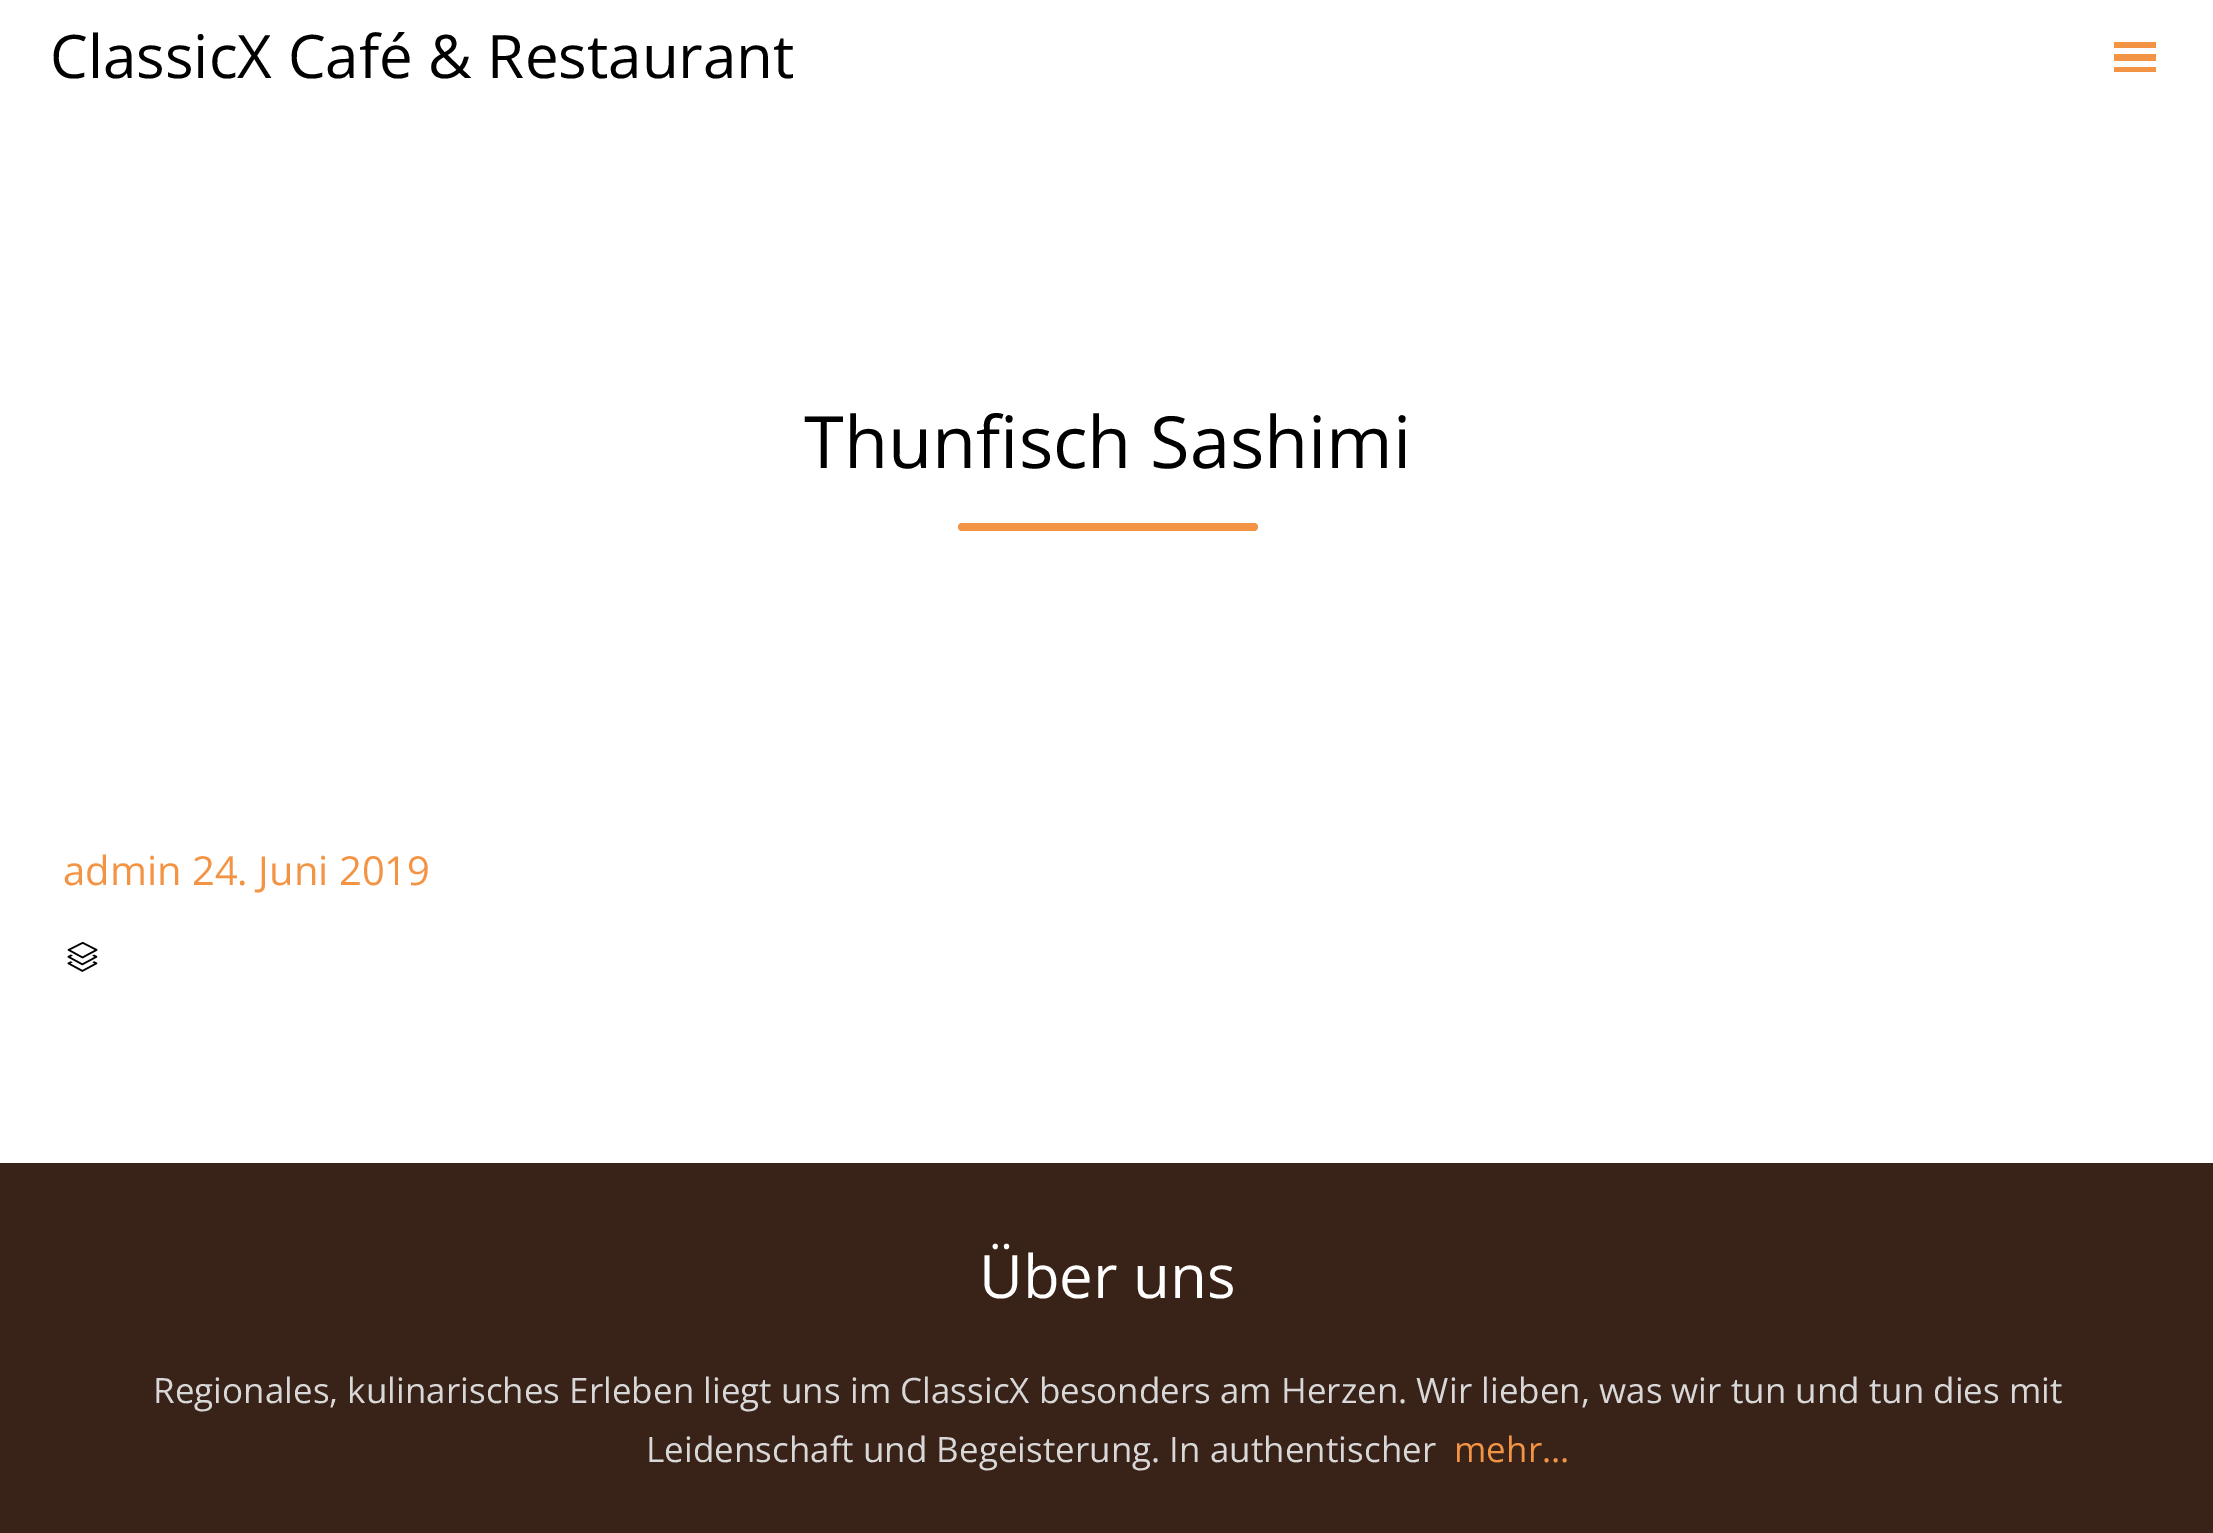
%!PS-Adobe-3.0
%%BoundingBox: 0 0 2213 1533
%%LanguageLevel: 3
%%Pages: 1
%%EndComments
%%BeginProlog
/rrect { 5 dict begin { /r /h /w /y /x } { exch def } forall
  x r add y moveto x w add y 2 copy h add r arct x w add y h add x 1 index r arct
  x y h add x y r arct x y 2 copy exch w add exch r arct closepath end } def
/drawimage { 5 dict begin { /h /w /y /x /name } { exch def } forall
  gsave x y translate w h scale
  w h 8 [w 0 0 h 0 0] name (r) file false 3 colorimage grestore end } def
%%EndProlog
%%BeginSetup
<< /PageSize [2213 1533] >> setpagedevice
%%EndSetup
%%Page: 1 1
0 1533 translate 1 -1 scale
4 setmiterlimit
1 setgray
0 0 2213 1533 rectfill
0.953 0.58 0.271 setrgbcolor
newpath 2114 72 moveto 2156 72 lineto 2156 67 lineto 2114 67 lineto closepath 2114 42 moveto 2114 48 lineto 2156 48 lineto 2156 42 lineto closepath 2114 61 moveto 2156 61 lineto 2156 54 lineto 2114 54 lineto closepath fill
958 523 300 8 4 rrect fill
(images/1.raw) 67 941 31 31 drawimage
0.224 0.137 0.094 setrgbcolor
0 1163 2213 370 rectfill
/OpenSans-Regular [60 0 0 -60 0 0] selectfont
0 setgray
50 78 moveto (ClassicX Café & Restaurant) show
/OpenSans-Regular [72 0 0 -72 0 0] selectfont
804 468 moveto (Thunfisch Sashimi) show
/OpenSans-Regular [40 0 0 -40 0 0] selectfont
0.953 0.58 0.271 setrgbcolor
63 885 moveto (admin 24. Juni 2019) show
/OpenSans-Regular [60 0 0 -60 0 0] selectfont
1 setgray
979 1298 moveto (Über uns) show
/OpenSans-Regular [35 0 0 -35 0 0] selectfont
0.847 setgray
153 1403 moveto (Regionales, kulinarisches Erleben liegt uns im ClassicX besonders am Herzen. Wir lieben, was wir tun und tun dies mit) show
646 1462 moveto (Leidenschaft und Begeisterung. In authentischer) show
0.953 0.58 0.271 setrgbcolor
1454 1462 moveto (mehr…) show
showpage
%%EOF
